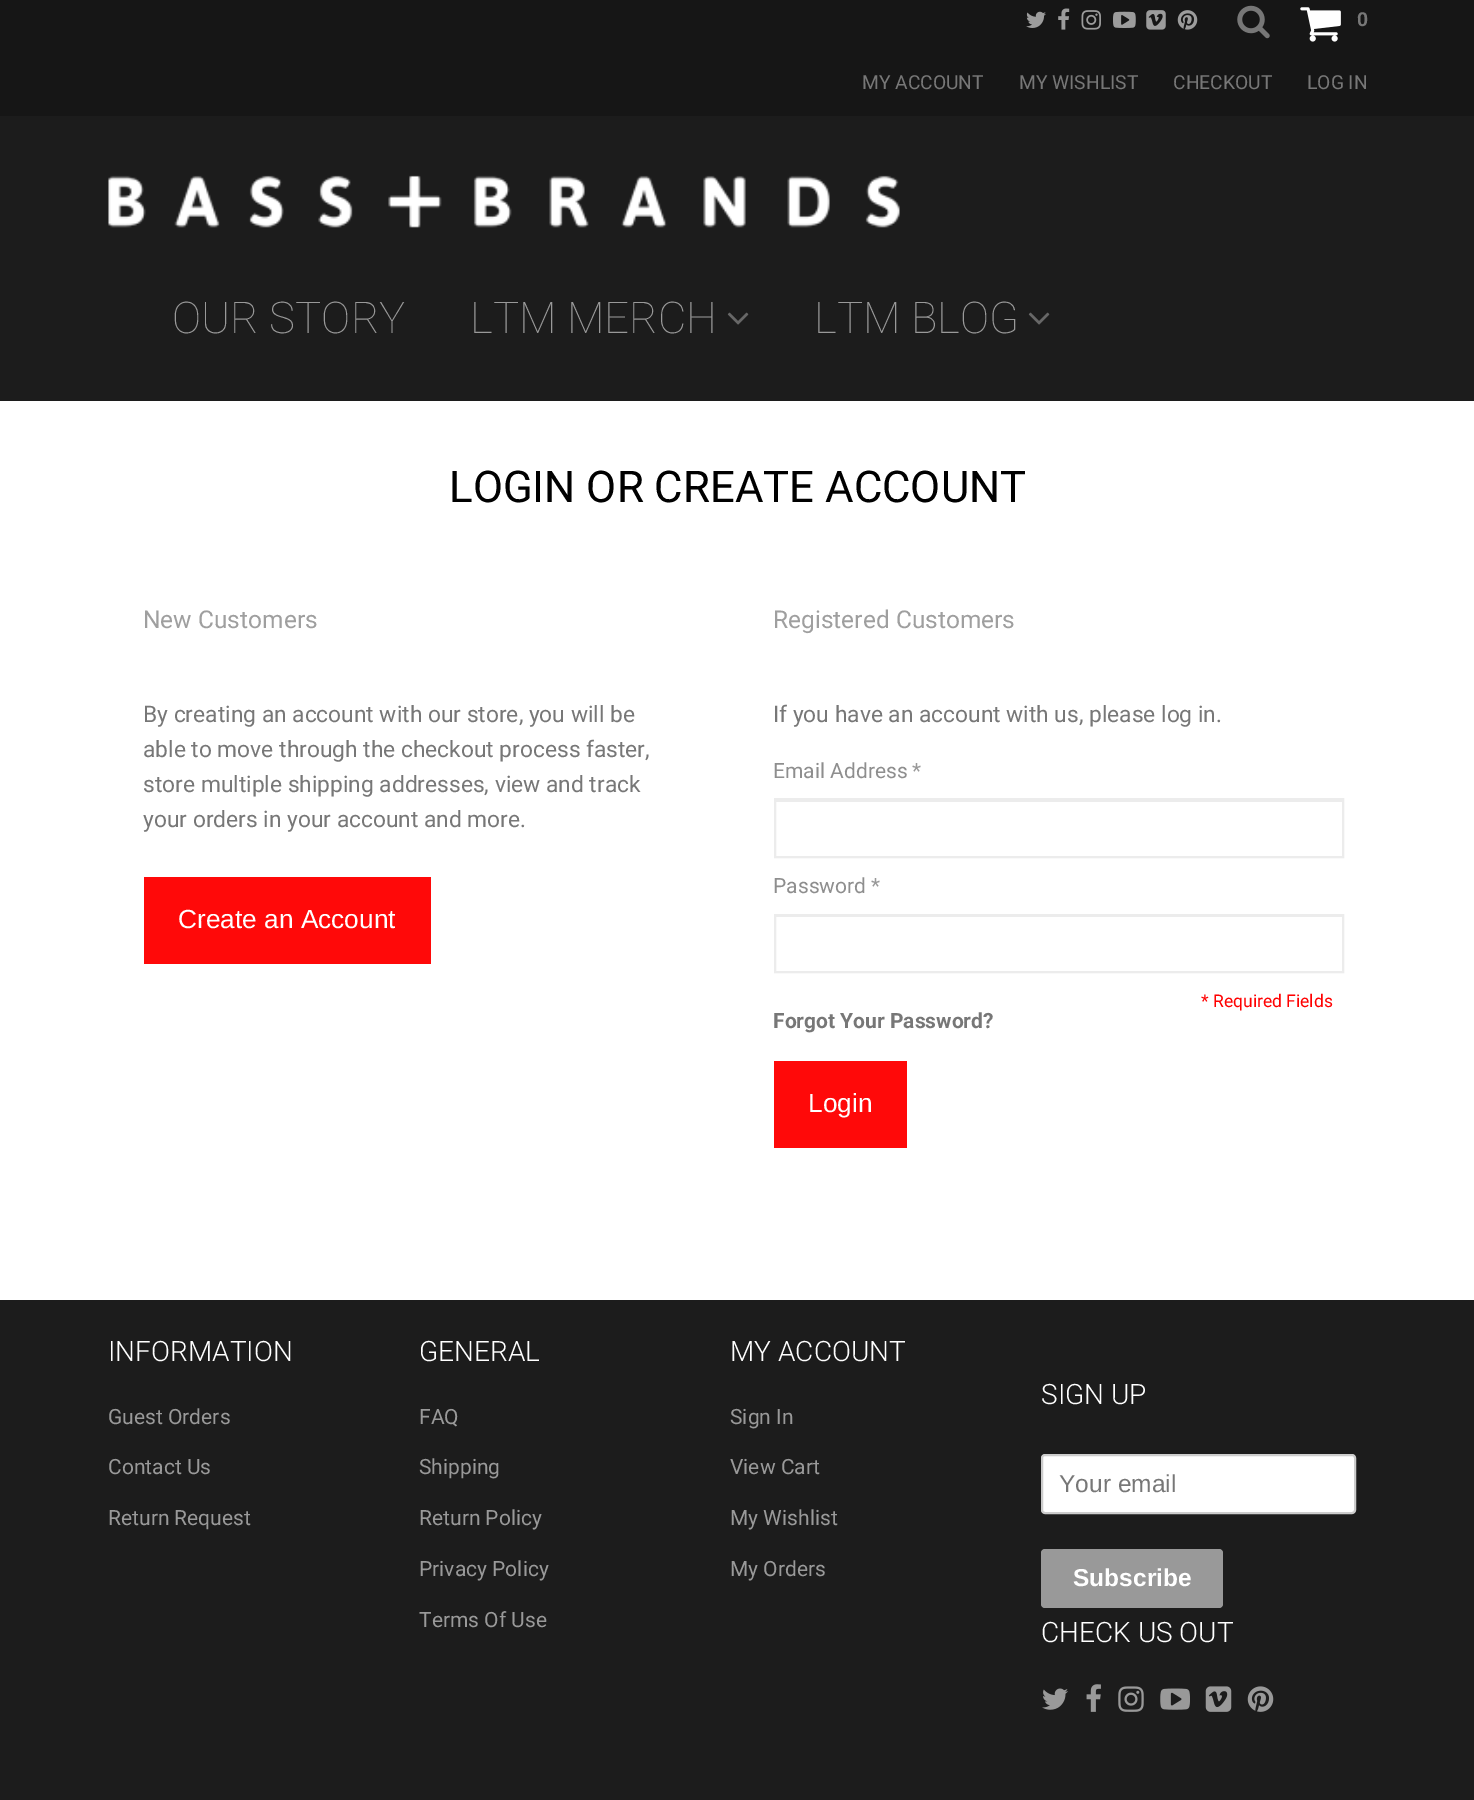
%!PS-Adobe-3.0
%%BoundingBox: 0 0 1474 1800
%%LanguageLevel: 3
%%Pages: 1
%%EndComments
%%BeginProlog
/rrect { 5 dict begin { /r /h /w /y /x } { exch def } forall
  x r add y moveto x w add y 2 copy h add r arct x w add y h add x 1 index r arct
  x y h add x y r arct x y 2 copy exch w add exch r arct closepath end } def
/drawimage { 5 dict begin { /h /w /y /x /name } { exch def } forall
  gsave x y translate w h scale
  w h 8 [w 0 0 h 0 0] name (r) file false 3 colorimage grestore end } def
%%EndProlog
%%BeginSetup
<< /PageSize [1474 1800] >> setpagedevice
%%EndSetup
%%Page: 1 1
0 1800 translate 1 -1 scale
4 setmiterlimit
1 setgray
0 0 1474 1800 rectfill
0.11 setgray
0 116 1474 285 rectfill
0.086 setgray
0 0 1474 116 rectfill
(images/1.raw) 1026 11 20 17 drawimage
(images/2.raw) 1058 8 12 22 drawimage
(images/3.raw) 1081 10 20 20 drawimage
(images/4.raw) 1113 11 23 17 drawimage
(images/5.raw) 1146 10 20 20 drawimage
(images/6.raw) 1177 10 21 20 drawimage
(images/7.raw) 1237 5 33 34 drawimage
(images/8.raw) 1300 7 41 35 drawimage
(images/9.raw) 108 175 792 53 drawimage
(images/10.raw) 727 312 22 13 drawimage
(images/10.raw) 1028 312 22 13 drawimage
1 0.035 0.035 setrgbcolor
144 877 287 87 rectfill
0.925 setgray
775 800 567 2 rectfill
2 setlinewidth
775 799 568 58 rectstroke
775 916 567 1 rectfill
775 915 568 57 rectstroke
1 0.035 0.035 setrgbcolor
774 1061 133 87 rectfill
0.11 setgray
0 1300 1474 500 rectfill
1 setgray
1042 1455 313 58 3 rrect gsave fill grestore
0.8 setgray
stroke
0.6 setgray
1041 1549 182 59 4 rrect fill
(images/11.raw) 1042 1688 26 22 drawimage
(images/12.raw) 1086 1684 15 28 drawimage
(images/13.raw) 1118 1686 26 26 drawimage
(images/14.raw) 1160 1688 30 22 drawimage
(images/15.raw) 1205 1686 27 26 drawimage
(images/16.raw) 1247 1686 27 26 drawimage
/Roboto-Bold [19.25 0 0 -19.25 0 0] selectfont
0.467 setgray
1357 26 moveto (0) show
/Roboto-Regular [19.25 0 0 -19.25 0 0] selectfont
862 89 moveto (MY ACCOUNT) show
1019 89 moveto (MY WISHLIST) show
1173 89 moveto (CHECKOUT) show
1307 89 moveto (LOG IN) show
/Roboto-Thin [43.75 0 0 -43.75 0 0] selectfont
0.6 setgray
172 333 moveto (OUR STORY) show
470 333 moveto (LTM MERCH) show
814 333 moveto (LTM BLOG) show
/Roboto-Regular [43.75 0 0 -43.75 0 0] selectfont
0 setgray
449 502 moveto (LOGIN OR CREATE ACCOUNT) show
/Roboto-Regular [24.5 0 0 -24.5 0 0] selectfont
0.624 setgray
143 628 moveto (New Customers) show
/Roboto-Regular [22.75 0 0 -22.75 0 0] selectfont
0.467 setgray
143 722 moveto (By creating an account with our store, you will be) show
143 757 moveto (able to move through the checkout process faster,) show
143 792 moveto (store multiple shipping addresses, view and track) show
143 827 moveto (your orders in your account and more.) show
/LiberationSans-Regular [26.25 0 0 -26.25 0 0] selectfont
1 setgray
178 928 moveto (Create an Account) show
/Roboto-Regular [24.5 0 0 -24.5 0 0] selectfont
0.624 setgray
773 628 moveto (Registered Customers) show
/Roboto-Regular [22.75 0 0 -22.75 0 0] selectfont
0.467 setgray
773 722 moveto (If you have an account with us, please log in.) show
/Roboto-Regular [21 0 0 -21 0 0] selectfont
0.557 setgray
773 778 moveto (Email Address) show
0.6 setgray
912 778 moveto (*) show
0.557 setgray
773 893 moveto (Password) show
0.6 setgray
871 893 moveto (*) show
/Roboto-Regular [17.5 0 0 -17.5 0 0] selectfont
1 0 0 setrgbcolor
1201 1007 moveto (* Required Fields) show
/Roboto-Bold [21 0 0 -21 0 0] selectfont
0.467 setgray
773 1028 moveto (Forgot Your Password?) show
/LiberationSans-Regular [26.25 0 0 -26.25 0 0] selectfont
1 setgray
808 1112 moveto (Login) show
/Roboto-Light [28 0 0 -28 0 0] selectfont
108 1361 moveto (INFORMATION) show
/Roboto-Regular [21 0 0 -21 0 0] selectfont
0.6 setgray
108 1424 moveto (Guest Orders) show
108 1474 moveto (Contact Us) show
108 1525 moveto (Return Request) show
/Roboto-Light [28 0 0 -28 0 0] selectfont
1 setgray
419 1361 moveto (GENERAL) show
/Roboto-Regular [21 0 0 -21 0 0] selectfont
0.6 setgray
419 1424 moveto (FAQ) show
419 1474 moveto (Shipping) show
419 1525 moveto (Return Policy) show
419 1576 moveto (Privacy Policy) show
419 1627 moveto (Terms Of Use) show
/Roboto-Light [28 0 0 -28 0 0] selectfont
1 setgray
730 1361 moveto (MY ACCOUNT) show
/Roboto-Regular [21 0 0 -21 0 0] selectfont
0.6 setgray
730 1424 moveto (Sign In) show
730 1474 moveto (View Cart) show
730 1525 moveto (My Wishlist) show
730 1576 moveto (My Orders) show
/Roboto-Light [28 0 0 -28 0 0] selectfont
1 setgray
1041 1404 moveto (SIGN UP) show
/LiberationSans-Regular [24.5 0 0 -24.5 0 0] selectfont
0.467 setgray
1059 1492 moveto (Your email) show
/LiberationSans-Bold [24.5 0 0 -24.5 0 0] selectfont
1 setgray
1073 1586 moveto (Subscribe) show
/Roboto-Light [28 0 0 -28 0 0] selectfont
1041 1642 moveto (CHECK US OUT) show
showpage
%%EOF
